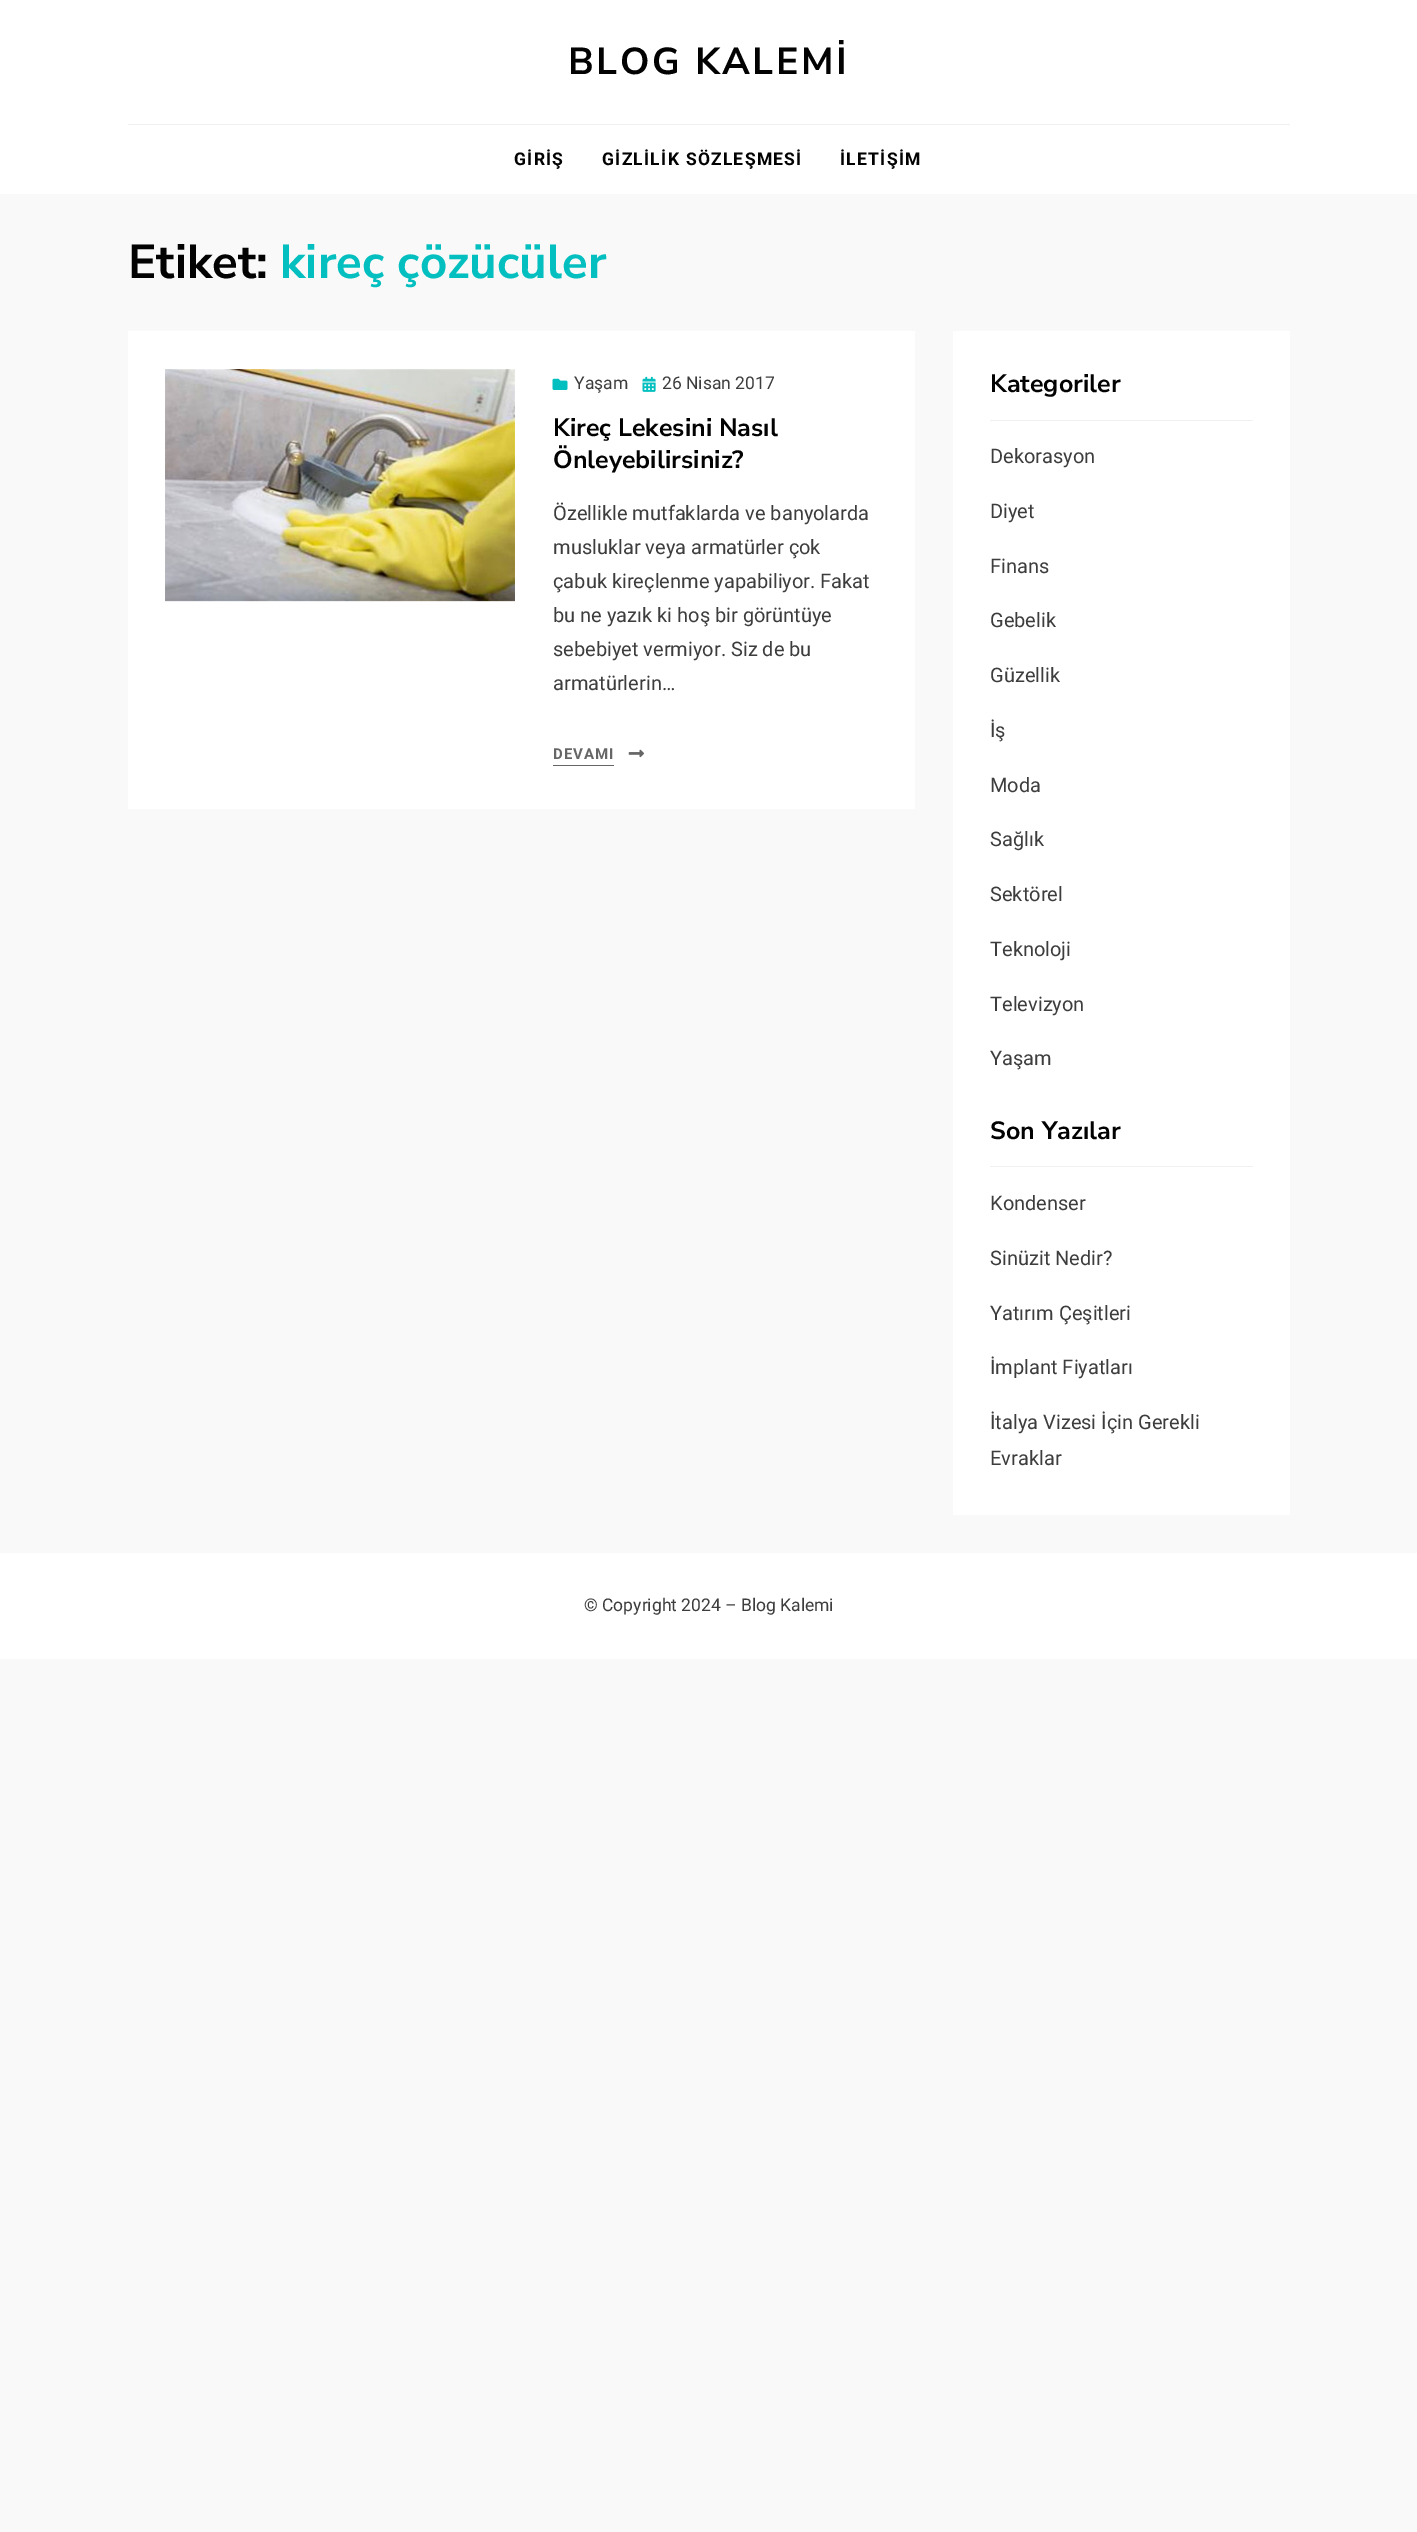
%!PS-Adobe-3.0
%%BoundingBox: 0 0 1417 2532
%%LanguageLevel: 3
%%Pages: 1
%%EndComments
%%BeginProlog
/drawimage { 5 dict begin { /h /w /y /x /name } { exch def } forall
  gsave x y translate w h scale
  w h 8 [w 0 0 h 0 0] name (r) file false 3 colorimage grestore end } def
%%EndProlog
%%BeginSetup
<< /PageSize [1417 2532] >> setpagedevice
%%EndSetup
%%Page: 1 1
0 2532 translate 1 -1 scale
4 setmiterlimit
0.976 setgray
0 0 1417 2532 rectfill
1 setgray
0 0 1417 194 rectfill
0.941 setgray
128 124 1162 1 rectfill
1 setgray
128 331 787 478 rectfill
(images/1.raw) 165 369 350 233 drawimage
(images/2.raw) 552 378 16 12 drawimage
(images/3.raw) 642 376 14 16 drawimage
(images/4.raw) 628 749 16 9 drawimage
0.4 setgray
553 765 61 1 rectfill
1 setgray
953 331 337 1184 rectfill
0.941 setgray
990 420 263 1 rectfill
990 1166 263 1 rectfill
1 setgray
0 1553 1417 106 rectfill
/NunitoSans-Bold [37.5 0 0 -37.5 0 0] selectfont
0.008 setgray
568 74 moveto 2.5 0 (BLOG KALEMİ) ashow
/Roboto-Bold [17.5 0 0 -17.5 0 0] selectfont
514 165 moveto 1.25 0 (GİRİŞ) ashow
602 165 moveto 1.25 0 (GİZLİLİK SÖZLEŞMESİ) ashow
840 165 moveto 1.25 0 (İLETİŞİM) ashow
/NunitoSans-Bold [47.5 0 0 -47.5 0 0] selectfont
128 278 moveto (Etiket:) show
0.016 0.749 0.749 setrgbcolor
280 278 moveto (kireç çözücüler) show
/Roboto-Regular [17.5 0 0 -17.5 0 0] selectfont
0.239 setgray
574 389 moveto (Yaşam) show
662 389 moveto (26 Nisan 2017) show
/NunitoSans-Bold [25 0 0 -25 0 0] selectfont
0.008 setgray
553 436 moveto (Kireç Lekesini Nasıl) show
553 468 moveto (Önleyebilirsiniz?) show
/Roboto-Regular [20 0 0 -20 0 0] selectfont
0.239 setgray
553 520 moveto (Özellikle mutfaklarda ve banyolarda) show
553 554 moveto (musluklar veya armatürler çok) show
553 588 moveto (çabuk kireçlenme yapabiliyor. Fakat) show
553 622 moveto (bu ne yazık ki hoş bir görüntüye) show
553 656 moveto (sebebiyet vermiyor. Siz de bu) show
553 690 moveto (armatürlerin…) show
/Roboto-Bold [15 0 0 -15 0 0] selectfont
0.4 setgray
553 759 moveto 1 0 (DEVAMI) ashow
/NunitoSans-Bold [25 0 0 -25 0 0] selectfont
0.008 setgray
990 392 moveto (Kategoriler) show
/Roboto-Regular [20 0 0 -20 0 0] selectfont
0.239 setgray
990 463 moveto (Dekorasyon) show
990 518 moveto (Diyet) show
990 573 moveto (Finans) show
990 627 moveto (Gebelik) show
990 682 moveto (Güzellik) show
990 737 moveto (İş) show
990 792 moveto (Moda) show
990 846 moveto (Sağlık) show
990 901 moveto (Sektörel) show
990 956 moveto (Teknoloji) show
990 1011 moveto (Televizyon) show
990 1065 moveto (Yaşam) show
/NunitoSans-Bold [25 0 0 -25 0 0] selectfont
0.008 setgray
990 1139 moveto (Son Yazılar) show
/Roboto-Regular [20 0 0 -20 0 0] selectfont
0.239 setgray
990 1210 moveto (Kondenser) show
990 1265 moveto (Sinüzit Nedir?) show
990 1320 moveto (Yatırım Çeşitleri) show
990 1374 moveto (İmplant Fiyatları) show
990 1429 moveto (İtalya Vizesi İçin Gerekli) show
990 1465 moveto (Evraklar) show
/Roboto-Regular [17.5 0 0 -17.5 0 0] selectfont
584 1611 moveto (© Copyright 2024 – Blog Kalemi) show
showpage
%%EOF
